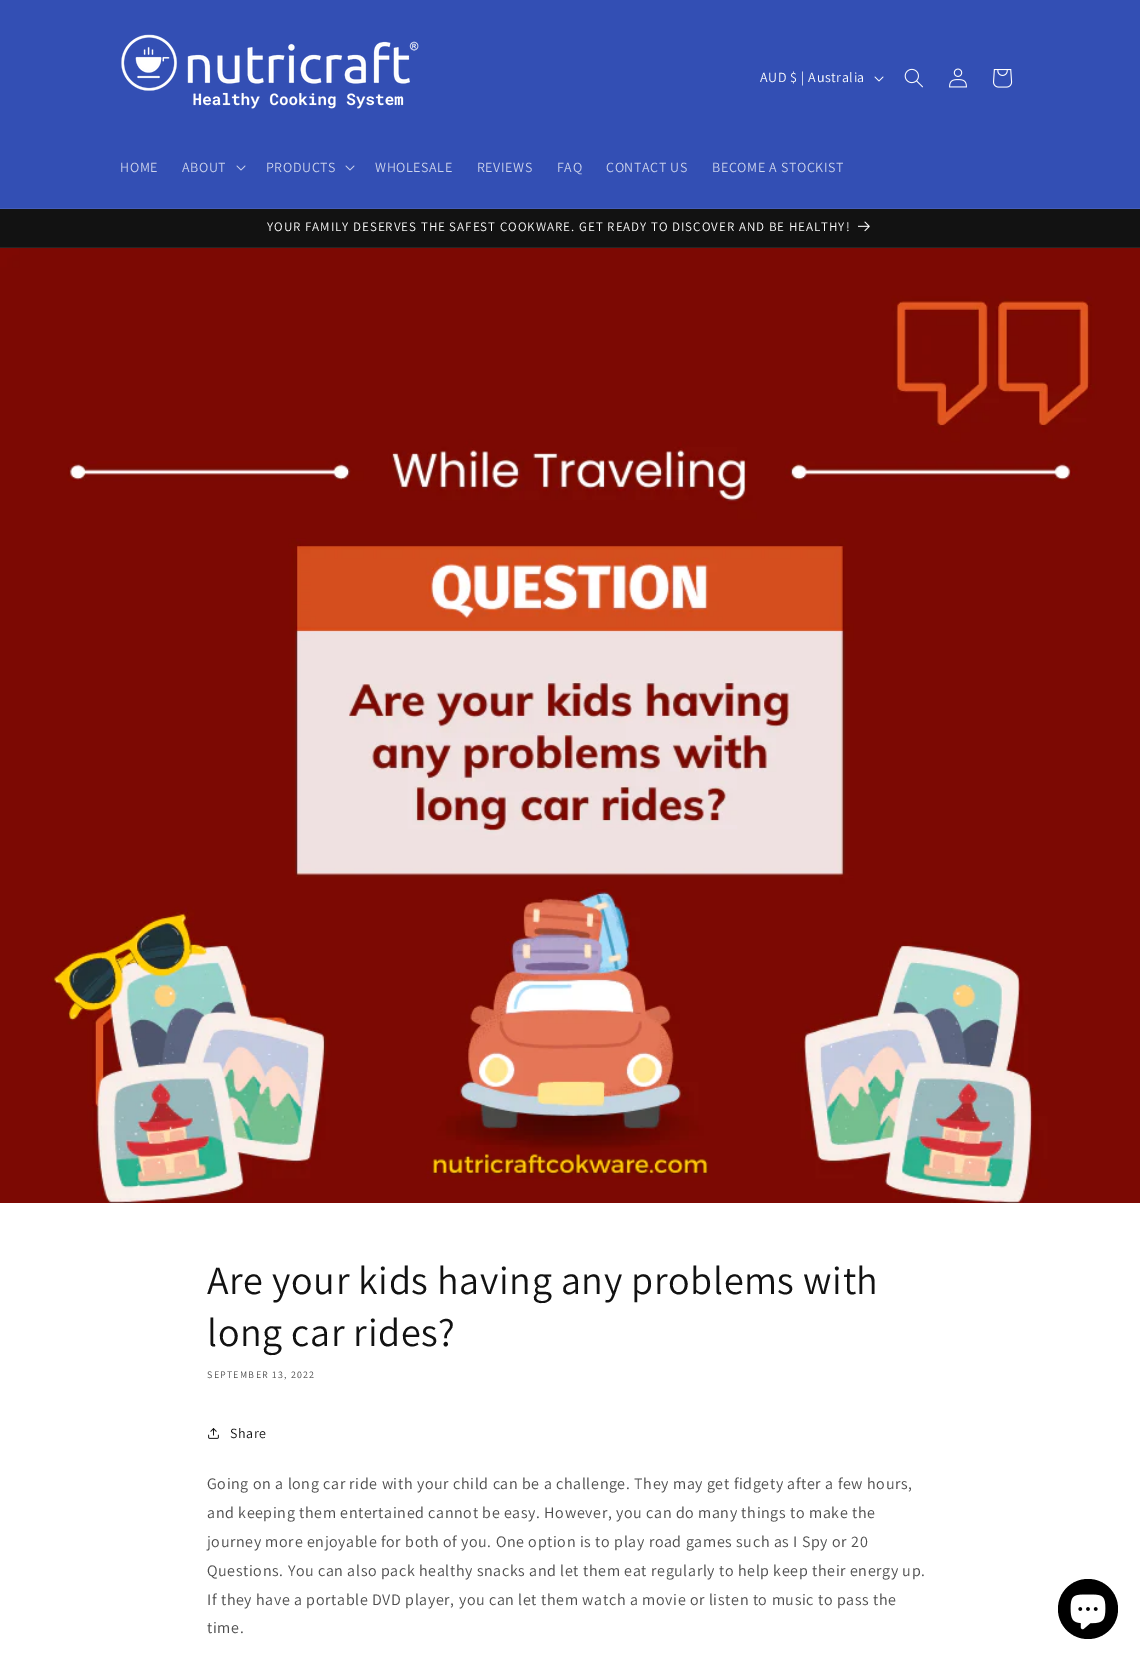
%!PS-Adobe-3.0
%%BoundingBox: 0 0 1140 1660
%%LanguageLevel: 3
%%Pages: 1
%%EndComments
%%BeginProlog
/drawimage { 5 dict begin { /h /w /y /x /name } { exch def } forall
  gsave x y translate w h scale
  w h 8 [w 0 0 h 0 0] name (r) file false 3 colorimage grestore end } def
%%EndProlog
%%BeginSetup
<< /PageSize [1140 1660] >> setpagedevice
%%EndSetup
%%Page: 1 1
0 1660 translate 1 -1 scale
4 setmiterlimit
1 setgray
0 0 1140 1660 rectfill
0.2 0.31 0.706 setrgbcolor
0 0 1140 208 rectfill
0.263 0.365 0.729 setrgbcolor
0 208 1140 1 rectfill
(images/1.raw) 121 34 298 75 drawimage
(images/2.raw) 874 76 10 6 drawimage
(images/3.raw) 904 68 19 20 drawimage
(images/4.raw) 949 68 18 20 drawimage
(images/5.raw) 993 69 20 19 drawimage
(images/6.raw) 236 165 10 6 drawimage
(images/6.raw) 345 165 10 6 drawimage
0.071 setgray
0 209 1140 38 rectfill
0.145 setgray
0 247 1140 1 rectfill
(images/7.raw) 858 221 12 11 drawimage
(images/8.raw) 0 248 1140 955 drawimage
(images/9.raw) 208 1428 11 11 drawimage
0 setgray
newpath 1088 1609 30 0 360 arc closepath fill
(images/10.raw) 1070 1594 36 36 drawimage
/Assistant-Regular [14 0 0 -14 0 0] selectfont
1 setgray
760 82 moveto 0.6 0 (AUD $ | Australia) ashow
0.8 0.827 0.925 setrgbcolor
120 172 moveto 0.6 0 (HOME) ashow
182 172 moveto 0.6 0 (ABOUT) ashow
266 172 moveto 0.6 0 (PRODUCTS) ashow
375 172 moveto 0.6 0 (WHOLESALE) ashow
477 172 moveto 0.6 0 (REVIEWS) ashow
557 172 moveto 0.6 0 (FAQ) ashow
606 172 moveto 0.6 0 (CONTACT US) ashow
712 172 moveto 0.6 0 (BECOME A STOCKIST) ashow
/Assistant-Regular [13 0 0 -13 0 0] selectfont
1 setgray
267 231 moveto 1 0 (YOUR FAMILY DESERVES THE SAFEST COOKWARE. GET READY TO DISCOVER AND BE HEALTHY!) ashow
/Assistant-Regular [40 0 0 -40 0 0] selectfont
0.071 setgray
207 1294 moveto 0.6 0 (Are your kids having any problems with) ashow
207 1346 moveto 0.6 0 (long car rides?) ashow
/Assistant-Regular [10 0 0 -10 0 0] selectfont
0.302 setgray
207 1378 moveto 1.25 0 (SEPTEMBER 13, 2022) ashow
/Assistant-Regular [14 0 0 -14 0 0] selectfont
0.071 setgray
230 1438 moveto 0.6 0 (Share) ashow
/Assistant-Regular [16 0 0 -16 0 0] selectfont
0.302 setgray
207 1489 moveto 0.6 0 (Going on a long car ride with your child can be a challenge. They may get fidgety after a few hours,) ashow
207 1518 moveto 0.6 0 (and keeping them entertained cannot be easy. However, you can do many things to make the) ashow
207 1547 moveto 0.6 0 (journey more enjoyable for both of you. One option is to play road games such as I Spy or 20) ashow
207 1576 moveto 0.6 0 (Questions. You can also pack healthy snacks and let them eat regularly to help keep their energy up.) ashow
207 1605 moveto 0.6 0 (If they have a portable DVD player, you can let them watch a movie or listen to music to pass the) ashow
207 1633 moveto 0.6 0 (time.) ashow
showpage
%%EOF
